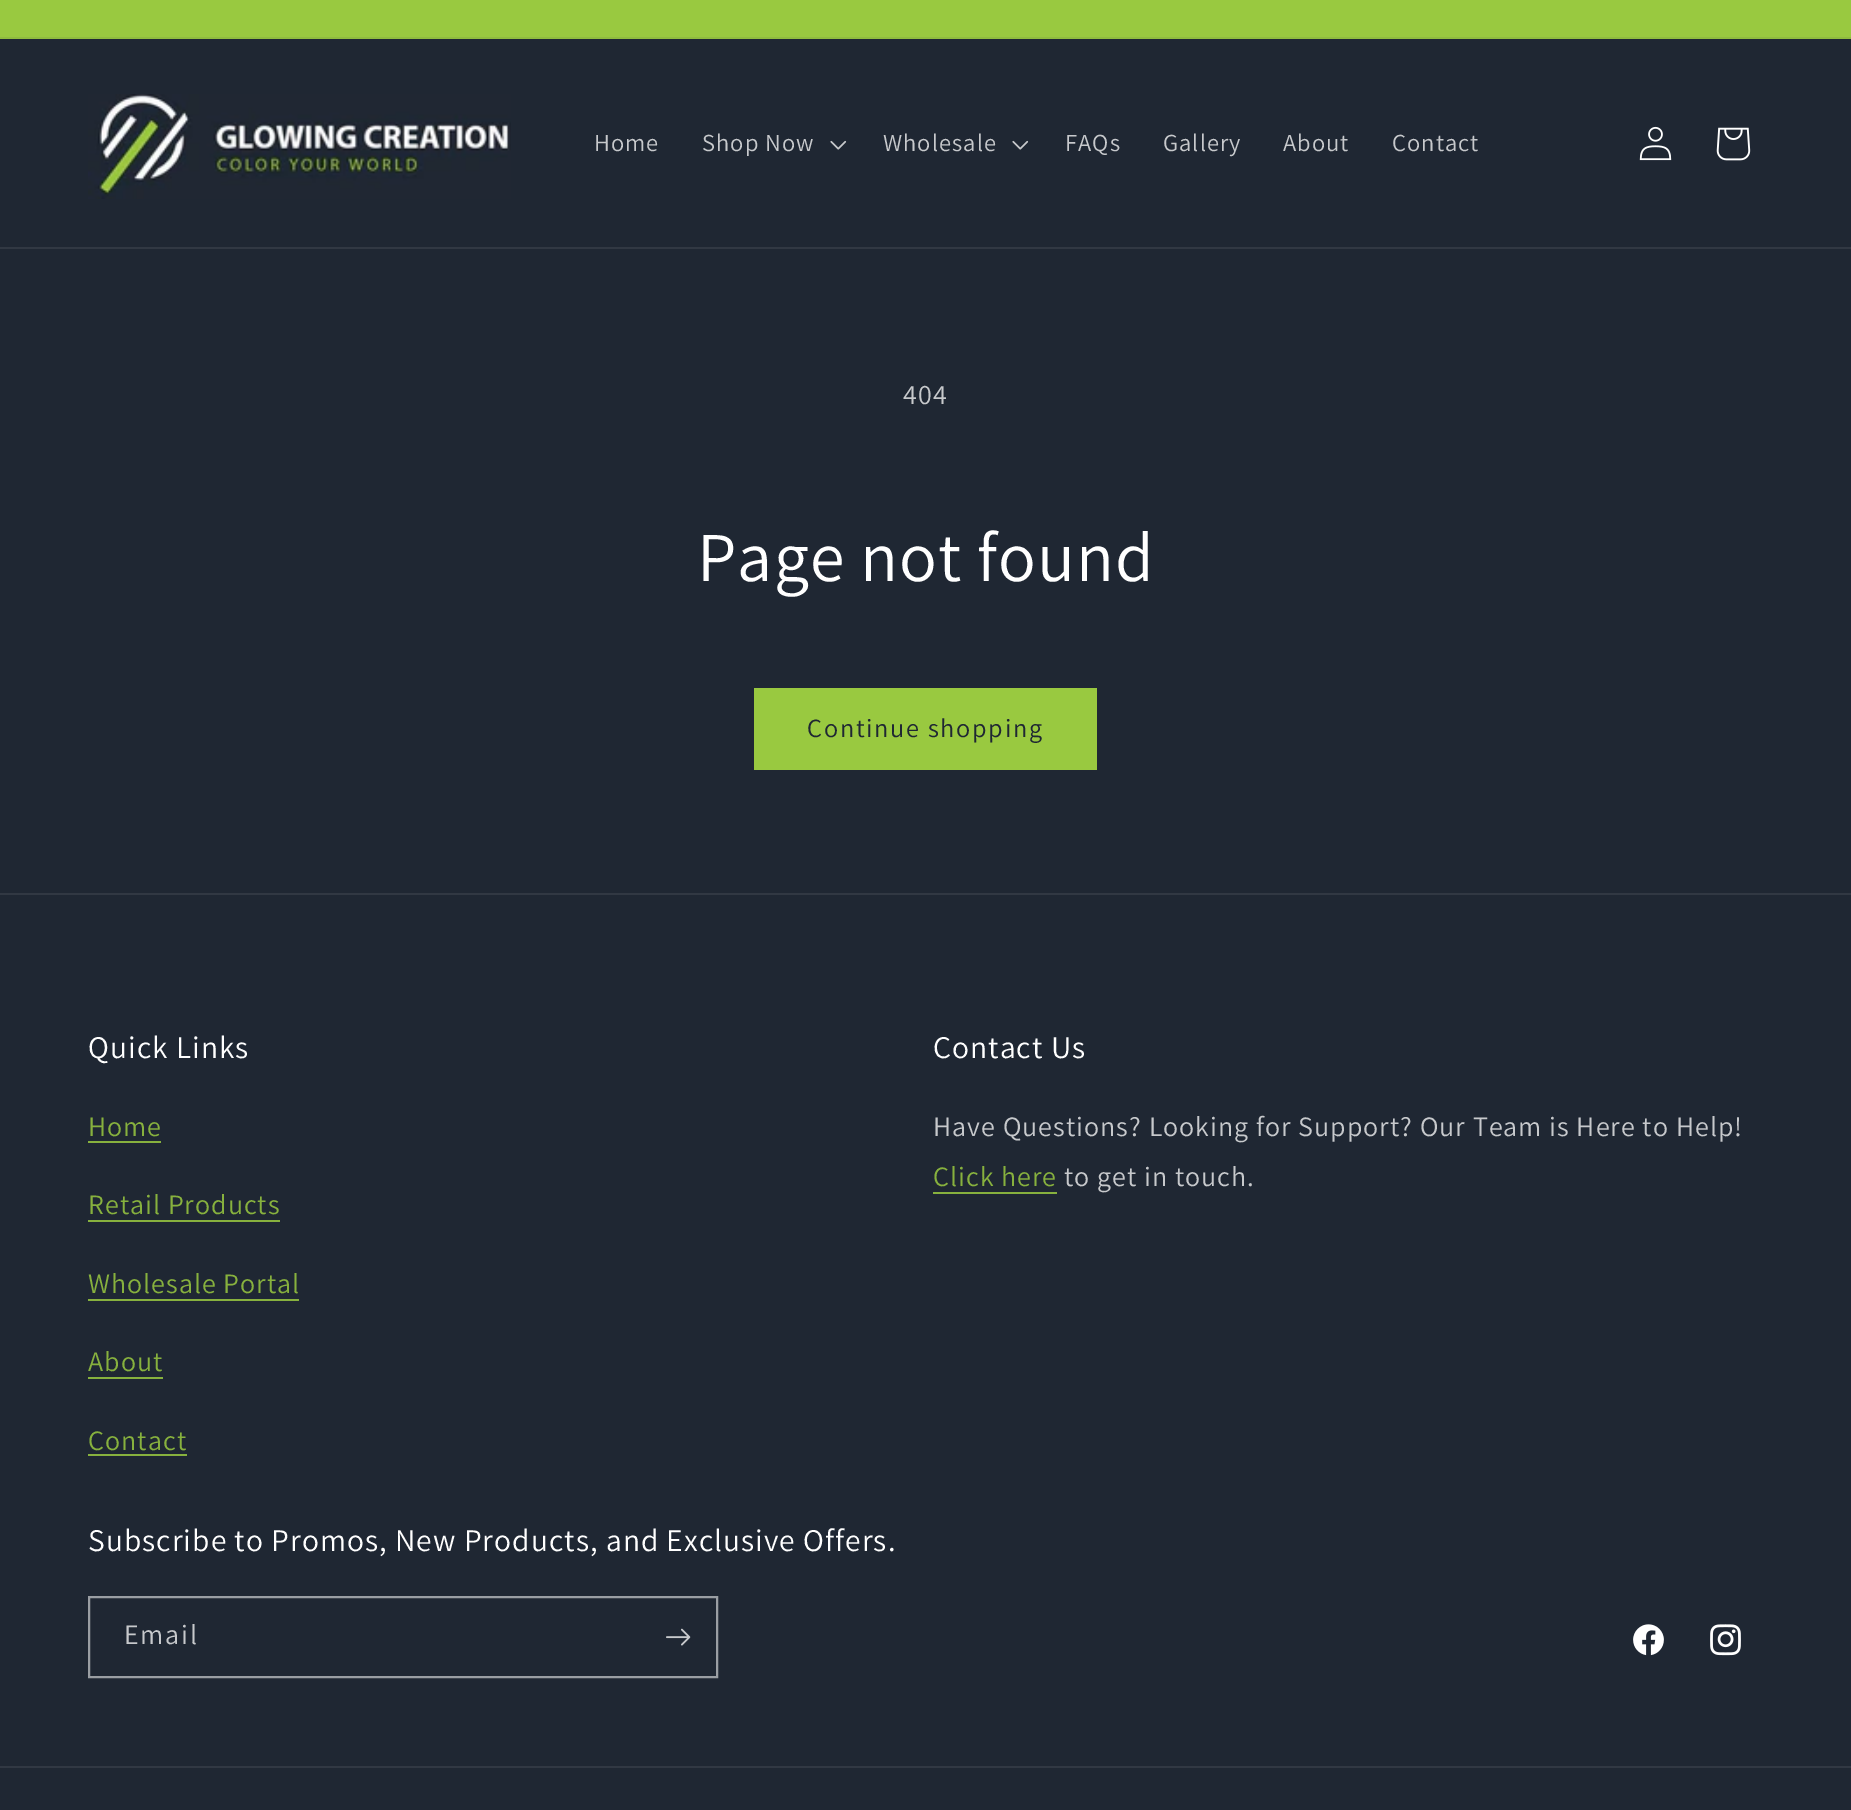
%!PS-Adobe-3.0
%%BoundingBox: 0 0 1851 1810
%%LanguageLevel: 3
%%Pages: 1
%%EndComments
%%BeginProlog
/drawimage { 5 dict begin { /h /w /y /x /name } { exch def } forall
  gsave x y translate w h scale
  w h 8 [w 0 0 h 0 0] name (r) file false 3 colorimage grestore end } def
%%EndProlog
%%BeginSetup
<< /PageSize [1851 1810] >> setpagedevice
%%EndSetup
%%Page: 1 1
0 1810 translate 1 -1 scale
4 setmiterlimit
0.122 0.153 0.2 setrgbcolor
0 0 1851 1810 rectfill
0.6 0.788 0.251 setrgbcolor
0 0 1851 37 rectfill
0.561 0.737 0.247 setrgbcolor
0 37 1851 2 rectfill
0.192 0.22 0.263 setrgbcolor
0 247 1851 2 rectfill
(images/1.raw) 88 94 423 105 drawimage
(images/2.raw) 830 140 17 10 drawimage
(images/2.raw) 1012 140 17 10 drawimage
(images/3.raw) 1639 126 33 35 drawimage
(images/4.raw) 1716 127 35 34 drawimage
0.6 0.788 0.251 setrgbcolor
754 688 343 82 rectfill
0.192 0.22 0.263 setrgbcolor
0 893 1851 2 rectfill
0.529 0.694 0.243 setrgbcolor
88 1141 73 2 rectfill
88 1220 192 2 rectfill
88 1299 211 2 rectfill
88 1377 75 2 rectfill
88 1454 99 2 rectfill
933 1192 124 2 rectfill
0.604 0.62 0.639 setrgbcolor
2 setlinewidth
89 1597 628 80 rectstroke
(images/5.raw) 666 1628 25 18 drawimage
(images/6.raw) 1633 1624 31 32 drawimage
(images/7.raw) 1710 1624 31 32 drawimage
0.192 0.22 0.263 setrgbcolor
0 1766 1851 2 rectfill
/Assistant-Regular [24.5 0 0 -24.5 0 0] selectfont
0.78 0.788 0.8 setrgbcolor
594 151 moveto 1.05 0 (Home) ashow
702 151 moveto 1.05 0 (Shop Now) ashow
883 151 moveto 1.05 0 (Wholesale) ashow
1065 151 moveto 1.05 0 (FAQs) ashow
1163 151 moveto 1.05 0 (Gallery) ashow
1283 151 moveto 1.05 0 (About) ashow
1392 151 moveto 1.05 0 (Contact) ashow
/Assistant-Regular [28 0 0 -28 0 0] selectfont
903 404 moveto 1.05 0 (404) ashow
/Assistant-Regular [70 0 0 -70 0 0] selectfont
1 setgray
697 581 moveto 1.05 0 (Page not found) ashow
/Assistant-Regular [26.25 0 0 -26.25 0 0] selectfont
0.122 0.153 0.2 setrgbcolor
807 737 moveto 1.75 0 (Continue shopping) ashow
/Assistant-Regular [31.5 0 0 -31.5 0 0] selectfont
1 setgray
88 1058 moveto 1.05 0 (Quick Links) ashow
/Assistant-Regular [28 0 0 -28 0 0] selectfont
0.529 0.694 0.243 setrgbcolor
88 1136 moveto 1.05 0 (Home) ashow
88 1214 moveto 1.05 0 (Retail Products) ashow
88 1293 moveto 1.05 0 (Wholesale Portal) ashow
88 1371 moveto 1.05 0 (About) ashow
88 1450 moveto 1.05 0 (Contact) ashow
/Assistant-Regular [31.5 0 0 -31.5 0 0] selectfont
1 setgray
933 1058 moveto 1.05 0 (Contact Us) ashow
/Assistant-Regular [28 0 0 -28 0 0] selectfont
0.78 0.788 0.8 setrgbcolor
933 1136 moveto 1.05 0 (Have Questions? Looking for Support? Our Team is Here to Help!) ashow
0.529 0.694 0.243 setrgbcolor
933 1186 moveto 1.05 0 (Click here) ashow
0.78 0.788 0.8 setrgbcolor
1064 1186 moveto 1.05 0 (to get in touch.) ashow
/Assistant-Regular [31.5 0 0 -31.5 0 0] selectfont
1 setgray
88 1551 moveto 1.05 0 (Subscribe to Promos, New Products, and Exclusive Offers.) ashow
/Assistant-Regular [28 0 0 -28 0 0] selectfont
0.78 0.788 0.8 setrgbcolor
124 1644 moveto 1.75 0 (Email) ashow
showpage
%%EOF
